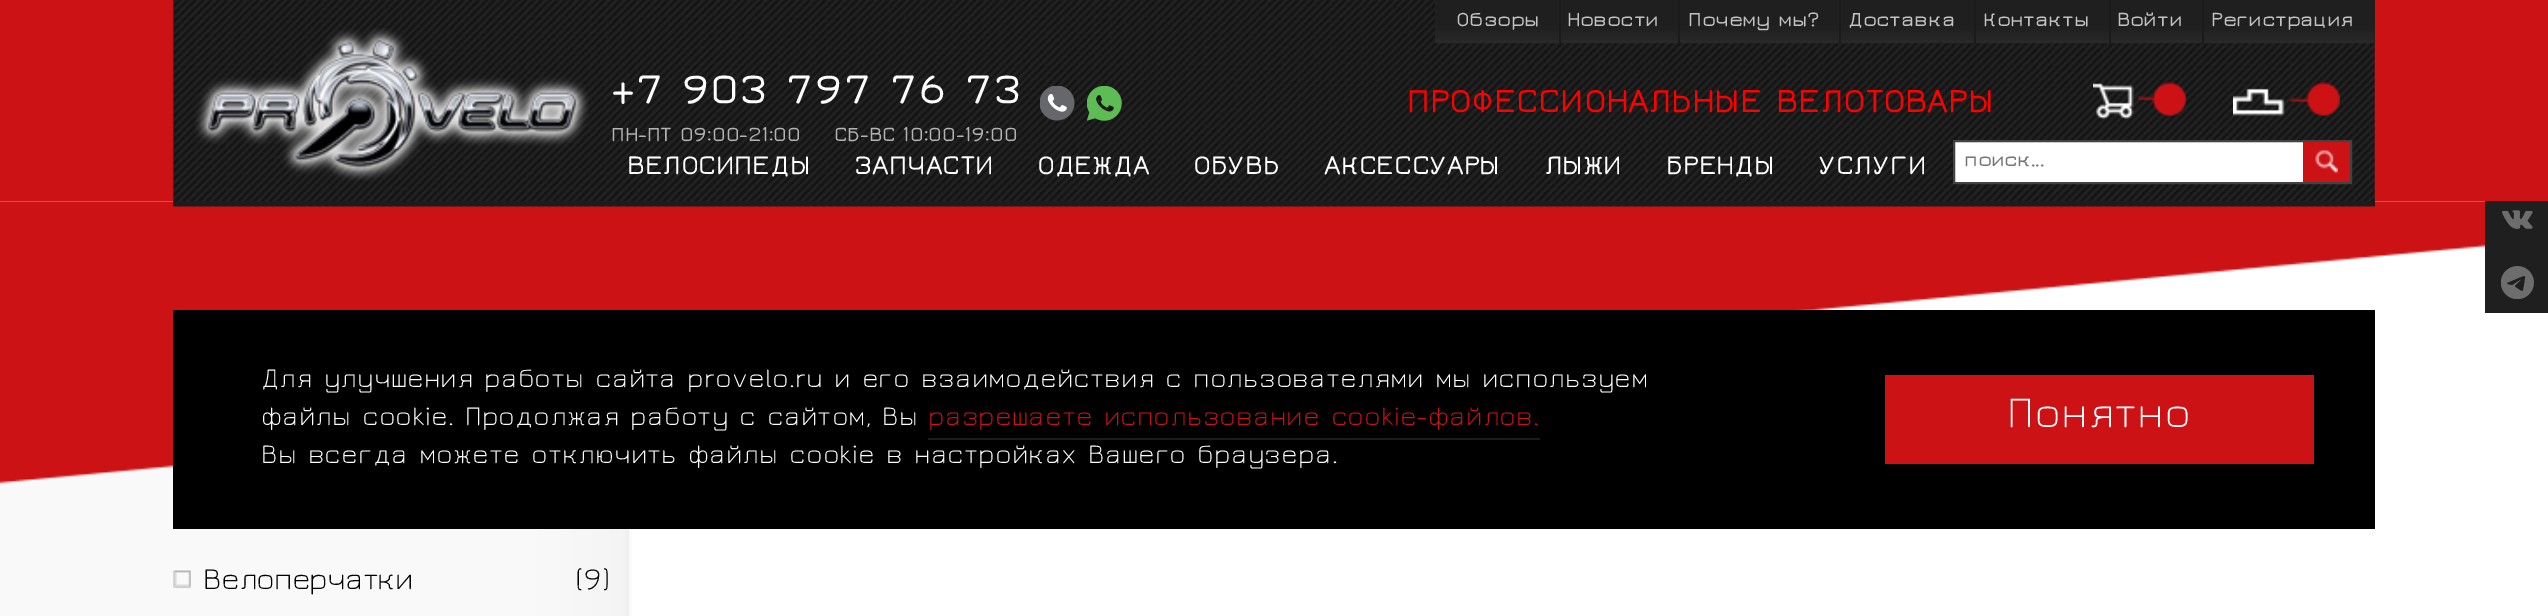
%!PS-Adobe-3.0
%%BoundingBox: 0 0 2548 616
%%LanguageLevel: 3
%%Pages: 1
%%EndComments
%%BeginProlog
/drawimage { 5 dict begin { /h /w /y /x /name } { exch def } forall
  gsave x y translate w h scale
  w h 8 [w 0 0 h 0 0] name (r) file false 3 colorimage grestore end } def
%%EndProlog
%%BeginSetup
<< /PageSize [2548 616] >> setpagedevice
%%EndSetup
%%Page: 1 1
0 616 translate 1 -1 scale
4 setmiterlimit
1 setgray
0 0 2548 616 rectfill
0.804 0.071 0.086 setrgbcolor
0 0 2548 201 rectfill
(images/10.raw) 0 465 632 151 drawimage
(images/9.raw) 0 201 2485 283 drawimage
(images/1.raw) 173 0 2202 207 drawimage
0.11 setgray
173 201 2202 5 rectfill
(images/2.raw) 1435 0 940 44 drawimage
0.106 setgray
1559 0 2 44 rectfill
1678 0 2 44 rectfill
1839 0 2 44 rectfill
1974 0 2 44 rectfill
2109 0 2 44 rectfill
2202 0 2 44 rectfill
(images/3.raw) 195 28 394 153 drawimage
(images/4.raw) 1040 86 35 35 drawimage
(images/5.raw) 1087 86 35 35 drawimage
(images/6.raw) 2093 82 93 37 drawimage
(images/7.raw) 2233 82 107 34 drawimage
1 setgray
1955 142 348 40 rectfill
0.259 setgray
2 setlinewidth
1954 141 397 42 rectstroke
0.804 0.071 0.086 setrgbcolor
2303 142 47 40 rectfill
(images/8.raw) 2315 150 23 24 drawimage
(images/11.raw) 173 570 18 18 drawimage
0.122 setgray
2485 201 63 112 rectfill
(images/12.raw) 2502 210 31 19 drawimage
(images/13.raw) 2501 266 33 33 drawimage
0 setgray
173 310 2202 219 rectfill
0.11 setgray
928 438 612 2 rectfill
0.804 0.071 0.086 setrgbcolor
1885 375 429 89 rectfill
/Jura-SemiBold [21 0 0 -21 0 0] selectfont
0.761 setgray
1456 26 moveto (Обзоры) show
1567 26 moveto (Новости) show
1688 26 moveto (Почему мы?) show
1848 26 moveto (Доставка) show
1983 26 moveto (Контакты) show
2117 26 moveto (Войти) show
2211 26 moveto (Регистрация) show
/Jura-SemiBold [43.75 0 0 -43.75 0 0] selectfont
1 setgray
611 103 moveto (+7 903 797 76 73) show
/Jura-SemiBold [21 0 0 -21 0 0] selectfont
0.702 setgray
611 141 moveto (ПН-ПТ 09:00-21:00) show
834 141 moveto (СБ-ВС 10:00-19:00) show
/Jura-SemiBold [35 0 0 -35 0 0] selectfont
1 0 0 setrgbcolor
1407 112 moveto (ПРОФЕССИОНАЛЬНЫЕ ВЕЛОТОВАРЫ) show
/Jura-SemiBold [28 0 0 -28 0 0] selectfont
1 setgray
627 174 moveto (ВЕЛОСИПЕДЫ) show
854 174 moveto (ЗАПЧАСТИ) show
1037 174 moveto (ОДЕЖДА) show
1193 174 moveto (ОБУВЬ) show
1324 174 moveto (АКСЕССУАРЫ) show
1544 174 moveto (ЛЫЖИ) show
1666 174 moveto (БРЕНДЫ) show
1818 174 moveto (УСЛУГИ) show
/Jura-SemiBold [21 0 0 -21 0 0] selectfont
0.459 setgray
1964 166 moveto (поиск...) show
/Jura-Light [31.5 0 0 -31.5 0 0] selectfont
0 setgray
203 589 moveto -1.1 0 (Велоперчатки) ashow
575 589 moveto (\(9\)) show
/Jura-Light [28 0 0 -28 0 0] selectfont
1 setgray
261 387 moveto (Для улучшения работы сайта provelo.ru и его взаимодействия с пользователями мы используем) show
261 425 moveto (файлы cookie. Продолжая работу с сайтом, Вы) show
0.804 0.071 0.086 setrgbcolor
928 425 moveto (разрешаете использование cookie-файлов.) show
1 setgray
261 463 moveto (Вы всегда можете отключить файлы cookie в настройках Вашего браузера.) show
/Jura-Light [45.5 0 0 -45.5 0 0] selectfont
2007 427 moveto (Понятно) show
showpage
%%EOF
